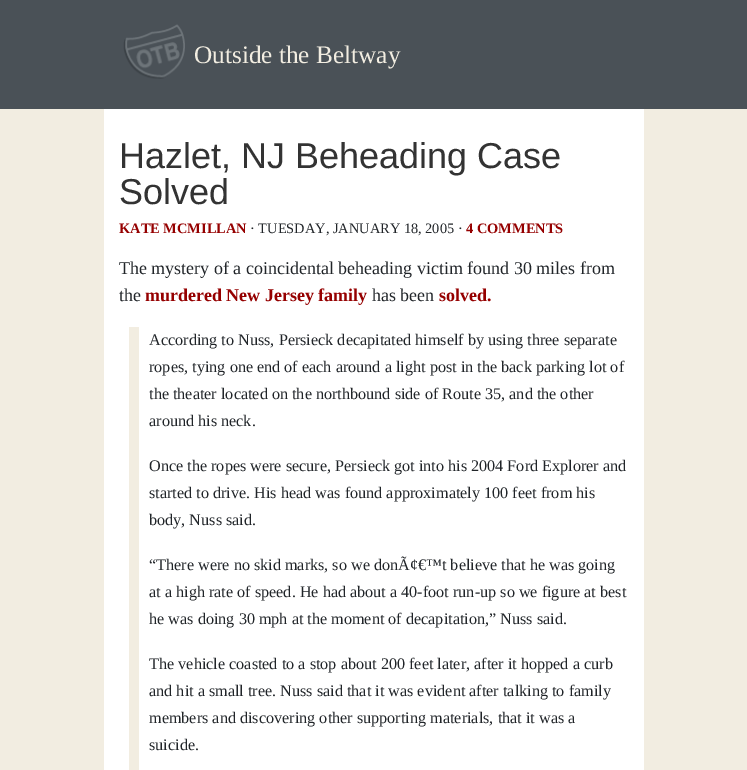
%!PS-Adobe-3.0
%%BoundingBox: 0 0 747 770
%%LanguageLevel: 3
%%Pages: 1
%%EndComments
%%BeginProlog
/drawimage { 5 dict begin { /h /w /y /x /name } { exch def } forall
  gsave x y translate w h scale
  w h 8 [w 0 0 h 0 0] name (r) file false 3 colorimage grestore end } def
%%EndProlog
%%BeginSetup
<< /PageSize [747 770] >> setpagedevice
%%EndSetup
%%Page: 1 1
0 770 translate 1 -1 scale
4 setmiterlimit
0.949 0.929 0.882 setrgbcolor
0 0 747 770 rectfill
0.29 0.318 0.341 setrgbcolor
0 0 747 109 rectfill
(images/1.raw) 123 24 62 55 drawimage
1 setgray
104 109 540 661 rectfill
0.949 0.929 0.882 setrgbcolor
129 327 10 443 rectfill
/LiberationSerif-Regular [25.25 0 0 -25.25 0 0] selectfont
194 63 moveto (Outside the Beltway) show
/LiberationSans-Regular [36 0 0 -36 0 0] selectfont
0.2 setgray
119 168 moveto (Hazlet, NJ Beheading Case) show
119 204 moveto (Solved) show
/LiberationSerif-Bold [14.4 0 0 -14.4 0 0] selectfont
0.584 0 0 setrgbcolor
119 233 moveto (KATE MCMILLAN) show
/LiberationSerif-Regular [14.4 0 0 -14.4 0 0] selectfont
0.129 0.145 0.161 setrgbcolor
250 233 moveto (· TUESDAY, JANUARY 18, 2005 ·) show
/LiberationSerif-Bold [14.4 0 0 -14.4 0 0] selectfont
0.584 0 0 setrgbcolor
466 233 moveto (4 COMMENTS) show
/LiberationSerif-Regular [18 0 0 -18 0 0] selectfont
0.129 0.145 0.161 setrgbcolor
119 274 moveto (The mystery of a coincidental beheading victim found 30 miles from) show
119 301 moveto (the) show
/LiberationSerif-Bold [18 0 0 -18 0 0] selectfont
0.584 0 0 setrgbcolor
145 301 moveto (murdered New Jersey family) show
/LiberationSerif-Regular [18 0 0 -18 0 0] selectfont
0.129 0.145 0.161 setrgbcolor
372 301 moveto (has been) show
/LiberationSerif-Bold [18 0 0 -18 0 0] selectfont
0.584 0 0 setrgbcolor
439 301 moveto (solved.) show
/LiberationSerif-Regular [16.2 0 0 -16.2 0 0] selectfont
0.129 0.145 0.161 setrgbcolor
149 345 moveto (According to Nuss, Persieck decapitated himself by using three separate) show
149 372 moveto (ropes, tying one end of each around a light post in the back parking lot of) show
149 399 moveto (the theater located on the northbound side of Route 35, and the other) show
149 426 moveto (around his neck.) show
149 471 moveto (Once the ropes were secure, Persieck got into his 2004 Ford Explorer and) show
149 498 moveto (started to drive. His head was found approximately 100 feet from his) show
149 525 moveto (body, Nuss said.) show
149 570 moveto (“There were no skid marks, so we donÃ¢€™t believe that he was going) show
149 597 moveto (at a high rate of speed. He had about a 40-foot run-up so we figure at best) show
149 624 moveto (he was doing 30 mph at the moment of decapitation,” Nuss said.) show
149 669 moveto (The vehicle coasted to a stop about 200 feet later, after it hopped a curb) show
149 696 moveto (and hit a small tree. Nuss said that it was evident after talking to family) show
149 723 moveto (members and discovering other supporting materials, that it was a) show
149 750 moveto (suicide.) show
showpage
%%EOF
